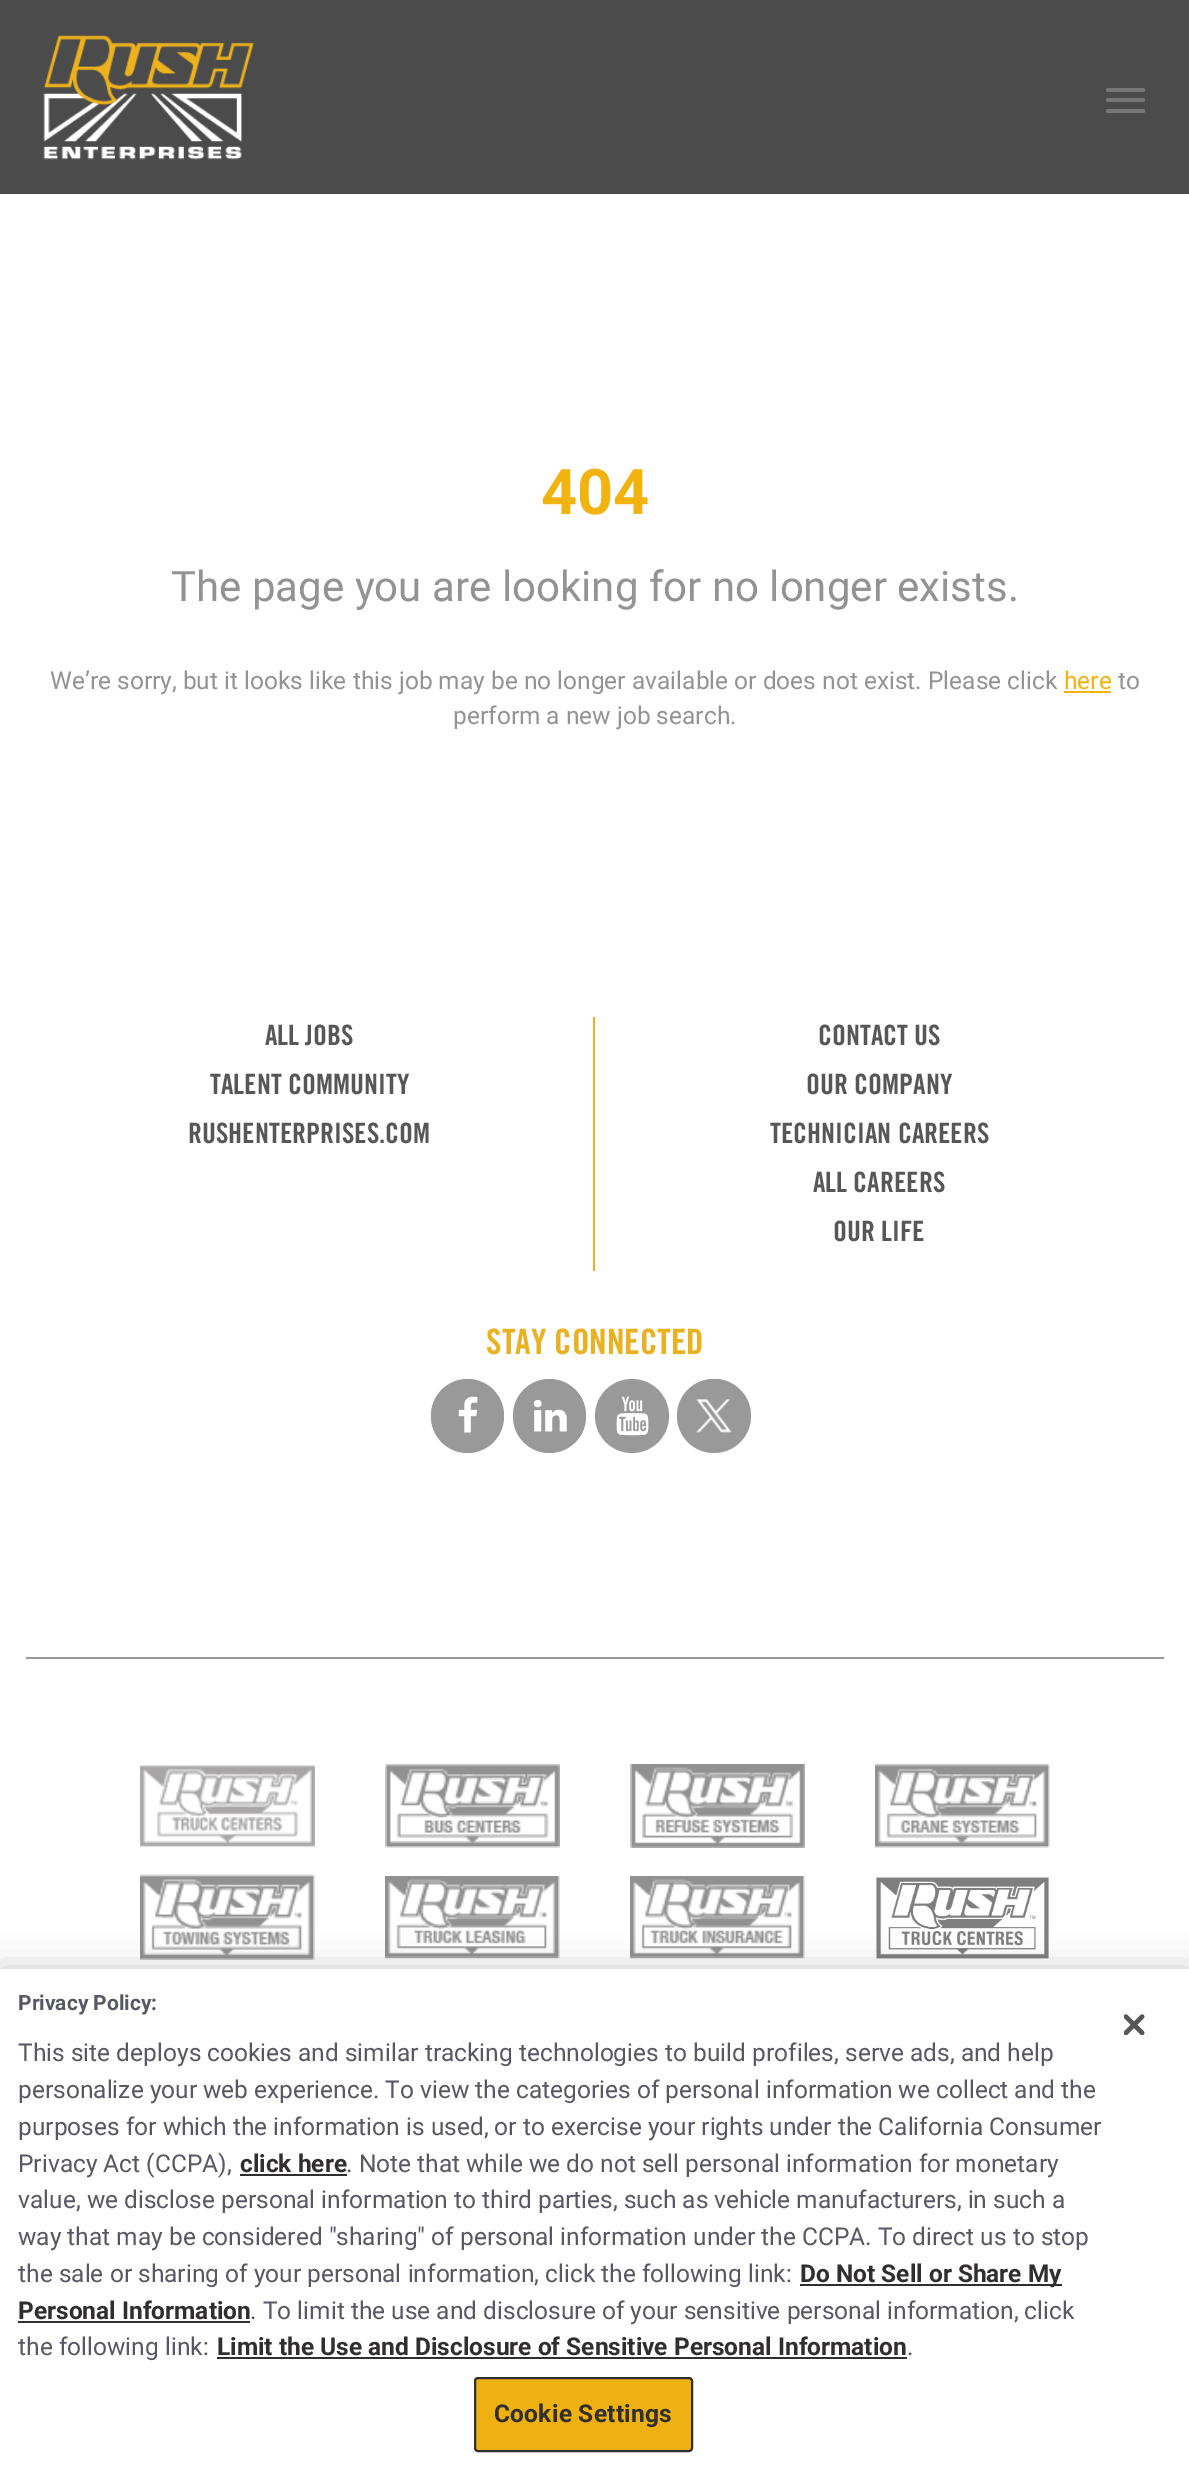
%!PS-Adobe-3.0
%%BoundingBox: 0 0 1189 2468
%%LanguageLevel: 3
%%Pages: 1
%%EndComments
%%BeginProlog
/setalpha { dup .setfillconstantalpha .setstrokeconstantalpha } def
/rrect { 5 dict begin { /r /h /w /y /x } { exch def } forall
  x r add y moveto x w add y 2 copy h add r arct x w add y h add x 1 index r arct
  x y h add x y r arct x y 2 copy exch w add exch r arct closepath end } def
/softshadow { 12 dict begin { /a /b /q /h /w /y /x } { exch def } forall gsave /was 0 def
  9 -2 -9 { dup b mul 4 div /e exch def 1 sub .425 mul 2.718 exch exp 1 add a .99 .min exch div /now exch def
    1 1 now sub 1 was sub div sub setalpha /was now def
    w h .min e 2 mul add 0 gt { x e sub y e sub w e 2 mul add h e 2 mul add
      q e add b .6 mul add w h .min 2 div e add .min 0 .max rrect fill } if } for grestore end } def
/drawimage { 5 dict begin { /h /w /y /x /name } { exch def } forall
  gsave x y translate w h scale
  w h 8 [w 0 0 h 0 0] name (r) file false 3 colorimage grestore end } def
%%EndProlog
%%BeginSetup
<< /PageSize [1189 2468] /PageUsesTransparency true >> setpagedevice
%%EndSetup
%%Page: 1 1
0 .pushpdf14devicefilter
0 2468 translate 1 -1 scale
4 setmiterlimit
1 setgray
0 0 1189 2468 rectfill
0.294 setgray
0 0 1189 194 rectfill
(images/1.raw) 43 35 211 125 drawimage
0.467 setgray
1106 88 39 4 2 rrect fill
1106 98 39 4 2 rrect fill
1106 109 39 4 2 rrect fill
0.945 0.702 0.059 setrgbcolor
1064 691 47 2 rectfill
0.6 setgray
26 1657 1138 2 rectfill
0.914 0.698 0.133 setrgbcolor
593 1017 2 254 rectfill
0.6 setgray
431 1379 73 74 36.5 rrect fill
(images/2.raw) 458 1396 20 37 drawimage
513 1379 73 74 36.5 rrect fill
(images/3.raw) 533 1400 34 32 drawimage
newpath 632 1416 37 0 360 arc closepath fill
(images/4.raw) 616 1396 33 40 drawimage
newpath 714 1416 37 0 360 arc closepath fill
(images/5.raw) 677 1379 74 74 drawimage
(images/6.raw) 140 1765 175 82 drawimage
(images/7.raw) 385 1764 175 84 drawimage
(images/8.raw) 630 1764 175 84 drawimage
(images/9.raw) 875 1764 175 84 drawimage
(images/10.raw) 140 1874 175 86 drawimage
(images/11.raw) 385 1876 175 83 drawimage
(images/12.raw) 630 1876 175 83 drawimage
(images/13.raw) 876 1877 173 82 drawimage
0 setgray
0 1969 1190 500 0 16 0.2 softshadow
1 setgray
0 1969 1189 499 rectfill
0.192 0.18 0.18 setrgbcolor
240 2174 107 2 rectfill
800 2284 262 2 rectfill
18 2321 232 2 rectfill
217 2357 690 2 rectfill
0.933 0.694 0.067 setrgbcolor
475 2378 217 73 3 rrect gsave fill grestore
0.192 0.18 0.18 setrgbcolor
2 setlinewidth
stroke
(images/14.raw) 1124 2014 21 21 drawimage
/Roboto-Bold [63 0 0 -63 0 0] selectfont
0.945 0.702 0.059 setrgbcolor
541 514 moveto (404) show
/Roboto-Regular [42 0 0 -42 0 0] selectfont
0.576 0.576 0.58 setrgbcolor
171 601 moveto (The page you are looking for no longer exists.) show
/Roboto-Regular [24.5 0 0 -24.5 0 0] selectfont
50 689 moveto (We’re sorry, but it looks like this job may be no longer available or does not exist. Please click) show
0.945 0.702 0.059 setrgbcolor
1064 689 moveto (here) show
0.576 0.576 0.58 setrgbcolor
1118 689 moveto (to) show
453 724 moveto (perform a new job search.) show
/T-Bold [28 0 0 -28 0 0] selectfont
0.341 setgray
265 1045 moveto (ALL JOBS) show
210 1094 moveto (TALENT COMMUNITY) show
188 1143 moveto (RUSHENTERPRISES.COM) show
818 1045 moveto (CONTACT US) show
806 1094 moveto (OUR COMPANY) show
770 1143 moveto (TECHNICIAN CAREERS) show
813 1192 moveto (ALL CAREERS) show
833 1241 moveto (OUR LIFE) show
/T-Bold [35 0 0 -35 0 0] selectfont
0.914 0.698 0.133 setrgbcolor
486 1354 moveto (STAY CONNECTED) show
/Roboto-Bold [21 0 0 -21 0 0] selectfont
0.345 0.345 0.392 setrgbcolor
18 2010 moveto (Privacy Policy:) show
/Roboto-Regular [24.5 0 0 -24.5 0 0] selectfont
18 2061 moveto (This site deploys cookies and similar tracking technologies to build profiles, serve ads, and help) show
18 2098 moveto (personalize your web experience. To view the categories of personal information we collect and the) show
18 2135 moveto (purposes for which the information is used, or to exercise your rights under the California Consumer) show
18 2172 moveto (Privacy Act \(CCPA\),) show
/Roboto-Bold [24.5 0 0 -24.5 0 0] selectfont
0.192 0.18 0.18 setrgbcolor
240 2172 moveto (click here) show
/Roboto-Regular [24.5 0 0 -24.5 0 0] selectfont
0.345 0.345 0.392 setrgbcolor
346 2172 moveto (. Note that while we do not sell personal information for monetary) show
18 2208 moveto (value, we disclose personal information to third parties, such as vehicle manufacturers, in such a) show
18 2245 moveto (way that may be considered "sharing" of personal information under the CCPA. To direct us to stop) show
18 2282 moveto (the sale or sharing of your personal information, click the following link:) show
/Roboto-Bold [24.5 0 0 -24.5 0 0] selectfont
0.192 0.18 0.18 setrgbcolor
800 2282 moveto (Do Not Sell or Share My) show
18 2319 moveto (Personal Information) show
/Roboto-Regular [24.5 0 0 -24.5 0 0] selectfont
0.345 0.345 0.392 setrgbcolor
250 2319 moveto (. To limit the use and disclosure of your sensitive personal information, click) show
18 2355 moveto (the following link:) show
/Roboto-Bold [24.5 0 0 -24.5 0 0] selectfont
0.192 0.18 0.18 setrgbcolor
217 2355 moveto (Limit the Use and Disclosure of Sensitive Personal Information) show
/Roboto-Regular [24.5 0 0 -24.5 0 0] selectfont
0.345 0.345 0.392 setrgbcolor
907 2355 moveto (.) show
/Roboto-Bold [24.5 0 0 -24.5 0 0] selectfont
0.192 0.18 0.18 setrgbcolor
494 2422 moveto 0.25 0 (Cookie Settings) ashow
.poppdf14devicefilter showpage
%%EOF
